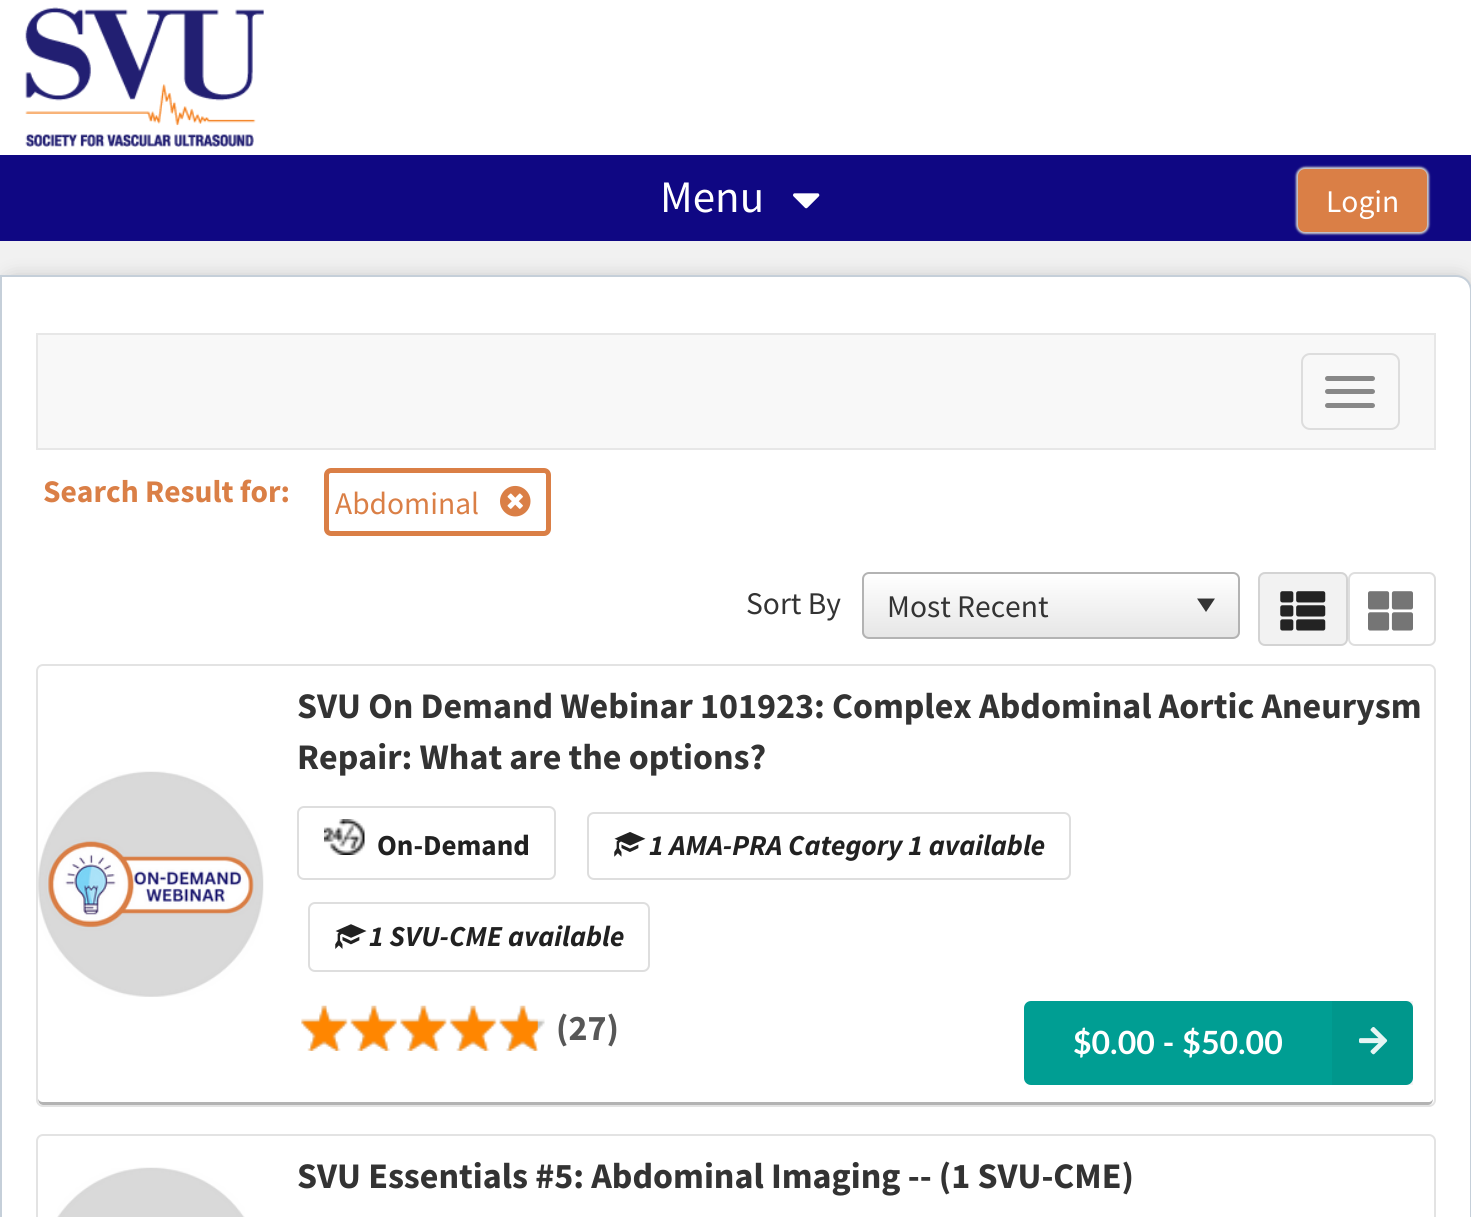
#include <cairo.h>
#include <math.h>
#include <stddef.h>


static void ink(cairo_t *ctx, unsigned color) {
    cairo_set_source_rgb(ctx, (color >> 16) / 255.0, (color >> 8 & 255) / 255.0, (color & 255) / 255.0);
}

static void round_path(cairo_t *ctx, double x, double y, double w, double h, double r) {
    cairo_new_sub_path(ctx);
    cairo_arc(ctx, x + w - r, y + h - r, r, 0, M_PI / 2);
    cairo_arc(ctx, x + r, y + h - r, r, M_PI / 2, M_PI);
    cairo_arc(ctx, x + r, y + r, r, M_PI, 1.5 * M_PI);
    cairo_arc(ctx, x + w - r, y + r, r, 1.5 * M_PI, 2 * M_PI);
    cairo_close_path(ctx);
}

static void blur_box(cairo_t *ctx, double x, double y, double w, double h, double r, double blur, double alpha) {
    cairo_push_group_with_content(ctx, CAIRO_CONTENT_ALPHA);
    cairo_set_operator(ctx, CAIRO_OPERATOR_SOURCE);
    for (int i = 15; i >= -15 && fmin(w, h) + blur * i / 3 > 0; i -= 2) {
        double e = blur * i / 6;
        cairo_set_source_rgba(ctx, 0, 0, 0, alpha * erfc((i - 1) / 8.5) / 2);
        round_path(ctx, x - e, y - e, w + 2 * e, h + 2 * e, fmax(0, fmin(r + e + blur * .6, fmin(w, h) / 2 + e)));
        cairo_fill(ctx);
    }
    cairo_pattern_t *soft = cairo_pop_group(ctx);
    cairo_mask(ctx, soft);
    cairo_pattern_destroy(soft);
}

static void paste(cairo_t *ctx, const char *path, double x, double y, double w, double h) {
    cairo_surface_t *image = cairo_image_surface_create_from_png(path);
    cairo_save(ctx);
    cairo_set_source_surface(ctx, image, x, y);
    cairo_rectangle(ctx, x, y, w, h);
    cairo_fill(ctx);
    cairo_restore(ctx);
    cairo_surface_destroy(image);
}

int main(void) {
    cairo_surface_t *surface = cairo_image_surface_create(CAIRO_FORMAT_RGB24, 1471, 1217);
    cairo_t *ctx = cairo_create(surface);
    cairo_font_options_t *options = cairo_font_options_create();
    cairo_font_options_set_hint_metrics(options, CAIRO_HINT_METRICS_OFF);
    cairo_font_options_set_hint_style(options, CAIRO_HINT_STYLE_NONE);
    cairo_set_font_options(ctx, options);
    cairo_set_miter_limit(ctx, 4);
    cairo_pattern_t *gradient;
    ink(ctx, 0xF1F1F1);
    cairo_paint(ctx);
    ink(ctx, 0xFFFFFF);
    cairo_rectangle(ctx, 0, 0, 1471, 155);
    cairo_fill(ctx);
    paste(ctx, "media/1.png", 25, 7, 239, 140);
    ink(ctx, 0x0F0783);
    cairo_rectangle(ctx, 0, 155, 1471, 86);
    cairo_fill(ctx);
    cairo_select_font_face(ctx, "Source Sans Pro", CAIRO_FONT_SLANT_NORMAL, CAIRO_FONT_WEIGHT_NORMAL);
    cairo_set_font_size(ctx, 45);
    ink(ctx, 0xFFFFFF);
    cairo_move_to(ctx, 660, 212);
    cairo_show_text(ctx, "Menu");
    paste(ctx, "media/2.png", 793, 193, 27, 16);
    ink(ctx, 0xCCCCCC);
    blur_box(ctx, 1296, 167, 133, 67, 9, 1, 1);
    ink(ctx, 0xDA7F46);
    round_path(ctx, 1298, 169, 129, 63, 7);
    cairo_fill(ctx);
    cairo_set_font_size(ctx, 31.5);
    ink(ctx, 0xFFFFFF);
    cairo_move_to(ctx, 1326, 212);
    cairo_show_text(ctx, "Login");
    ink(ctx, 0x000000);
    blur_box(ctx, 0, 277, 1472, 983, 16, 9, 0.2);
    ink(ctx, 0xFFFFFF);
    cairo_new_path(ctx);
    cairo_move_to(ctx, 1, 276);
    cairo_line_to(ctx, 1456, 276);
    cairo_curve_to(ctx, 1464.5, 276, 1471, 282.5, 1471, 291);
    cairo_line_to(ctx, 1471, 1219);
    cairo_curve_to(ctx, 1471, 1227.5, 1464.5, 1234, 1456, 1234);
    cairo_line_to(ctx, 1, 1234);
    cairo_close_path(ctx);
    cairo_fill_preserve(ctx);
    ink(ctx, 0xC5CFD9);
    cairo_stroke(ctx);
    ink(ctx, 0xF8F8F8);
    cairo_rectangle(ctx, 37, 334, 1398, 115);
    cairo_fill_preserve(ctx);
    ink(ctx, 0xE7E7E7);
    cairo_stroke(ctx);
    round_path(ctx, 1302, 354, 97, 75, 8);
    ink(ctx, 0xDDDDDD);
    cairo_stroke(ctx);
    ink(ctx, 0x888888);
    round_path(ctx, 1325, 376, 50, 5, 2.5);
    cairo_fill(ctx);
    round_path(ctx, 1325, 389, 50, 5, 2.5);
    cairo_fill(ctx);
    round_path(ctx, 1325, 403, 50, 5, 2.5);
    cairo_fill(ctx);
    cairo_select_font_face(ctx, "Source Sans Pro", CAIRO_FONT_SLANT_NORMAL, CAIRO_FONT_WEIGHT_BOLD);
    ink(ctx, 0xDA7F46);
    cairo_move_to(ctx, 43, 502);
    cairo_show_text(ctx, "Search Result for:");
    round_path(ctx, 326.5, 470.5, 222, 63, 4.5);
    cairo_set_line_width(ctx, 5);
    cairo_stroke(ctx);
    cairo_select_font_face(ctx, "Source Sans Pro", CAIRO_FONT_SLANT_NORMAL, CAIRO_FONT_WEIGHT_NORMAL);
    cairo_move_to(ctx, 335, 514);
    cairo_show_text(ctx, "Abdominal");
    paste(ctx, "media/3.png", 500, 485, 31, 32);
    ink(ctx, 0x333333);
    cairo_move_to(ctx, 746, 614);
    cairo_show_text(ctx, "Sort By");
    cairo_save(ctx);
    round_path(ctx, 862, 572, 378, 67, 7);
    cairo_clip(ctx);
    gradient = cairo_pattern_create_linear(1051, 574, 1051, 637);
    cairo_pattern_add_color_stop_rgba(gradient, 0, 1, 1, 1, 1);
    cairo_pattern_add_color_stop_rgba(gradient, 1, 0.902, 0.902, 0.902, 1);
    cairo_set_source(ctx, gradient);
    cairo_pattern_destroy(gradient);
    cairo_rectangle(ctx, 862, 574, 378, 63);
    cairo_fill(ctx);
    cairo_restore(ctx);
    round_path(ctx, 863, 573, 376, 65, 6);
    ink(ctx, 0xB3B3B3);
    cairo_set_line_width(ctx, 2);
    cairo_stroke(ctx);
    ink(ctx, 0x333333);
    cairo_move_to(ctx, 887, 617);
    cairo_show_text(ctx, "Most Recent");
    cairo_new_path(ctx);
    cairo_move_to(ctx, 1206, 612);
    cairo_line_to(ctx, 1197, 598.5);
    cairo_line_to(ctx, 1215, 598.5);
    cairo_close_path(ctx);
    cairo_fill(ctx);
    ink(ctx, 0xF2F2F2);
    round_path(ctx, 1258, 572, 90, 74, 7);
    cairo_fill(ctx);
    round_path(ctx, 1259, 573, 88, 72, 6);
    cairo_set_source_rgba(ctx, 0.133, 0.141, 0.149, 0.15);
    cairo_stroke(ctx);
    paste(ctx, "media/4.png", 1280, 591, 46, 40);
    round_path(ctx, 1349, 573, 86, 72, 6);
    ink(ctx, 0xDEDEDE);
    cairo_stroke(ctx);
    paste(ctx, "media/5.png", 1368, 591, 45, 40);
    ink(ctx, 0xB3B3B3);
    cairo_new_path(ctx);
    cairo_move_to(ctx, 38, 1098);
    cairo_curve_to(ctx, 38, 1101, 39, 1105, 43, 1105);
    cairo_line_to(ctx, 1428, 1105);
    cairo_curve_to(ctx, 1432, 1105, 1433, 1101, 1433, 1098);
    cairo_curve_to(ctx, 1433, 1100, 1431, 1102, 1429, 1102);
    cairo_line_to(ctx, 43, 1102);
    cairo_curve_to(ctx, 40, 1102, 38, 1100, 38, 1098);
    cairo_close_path(ctx);
    cairo_fill(ctx);
    round_path(ctx, 37, 665, 1398, 441, 6);
    ink(ctx, 0xE3E3E3);
    cairo_stroke(ctx);
    paste(ctx, "media/6.png", 38, 771, 226, 226);
    cairo_select_font_face(ctx, "Source Sans Pro", CAIRO_FONT_SLANT_NORMAL, CAIRO_FONT_WEIGHT_BOLD);
    cairo_set_font_size(ctx, 36);
    ink(ctx, 0x333333);
    cairo_move_to(ctx, 297, 718);
    cairo_show_text(ctx, "SVU On Demand Webinar 101923: Complex Abdominal Aortic Aneurysm");
    cairo_move_to(ctx, 297, 769);
    cairo_show_text(ctx, "Repair: What are the options?");
    round_path(ctx, 588, 813, 482, 66, 6);
    ink(ctx, 0xDEDEDE);
    cairo_stroke(ctx);
    paste(ctx, "media/7.png", 614, 832, 32, 25);
    cairo_select_font_face(ctx, "Source Sans Pro", CAIRO_FONT_SLANT_ITALIC, CAIRO_FONT_WEIGHT_BOLD);
    cairo_set_font_size(ctx, 29);
    ink(ctx, 0x212121);
    cairo_move_to(ctx, 649, 855);
    cairo_show_text(ctx, "1 AMA-PRA Category 1 available");
    round_path(ctx, 309, 903, 340, 68, 6);
    ink(ctx, 0xDEDEDE);
    cairo_stroke(ctx);
    paste(ctx, "media/8.png", 335, 924, 32, 25);
    ink(ctx, 0x212121);
    cairo_move_to(ctx, 369, 946);
    cairo_show_text(ctx, "1 SVU-CME available");
    round_path(ctx, 298, 807, 257, 72, 6);
    ink(ctx, 0xDEDEDE);
    cairo_stroke(ctx);
    paste(ctx, "media/9.png", 324, 819, 41, 36);
    cairo_select_font_face(ctx, "Source Sans Pro", CAIRO_FONT_SLANT_NORMAL, CAIRO_FONT_WEIGHT_BOLD);
    ink(ctx, 0x212121);
    cairo_move_to(ctx, 377, 855);
    cairo_show_text(ctx, "On-Demand");
    paste(ctx, "media/10.png", 301, 1005, 244, 46);
    paste(ctx, "media/11.png", 301, 1005, 237, 46);
    cairo_set_font_size(ctx, 36);
    ink(ctx, 0x575757);
    cairo_move_to(ctx, 556, 1040);
    cairo_show_text(ctx, "(27)");
    ink(ctx, 0x009E93);
    round_path(ctx, 1024, 1001, 389, 84, 7);
    cairo_fill(ctx);
    cairo_select_font_face(ctx, "Lato", CAIRO_FONT_SLANT_NORMAL, CAIRO_FONT_WEIGHT_BOLD);
    cairo_set_font_size(ctx, 32);
    ink(ctx, 0xFFFFFF);
    cairo_move_to(ctx, 1073, 1054);
    cairo_show_text(ctx, "$0.00 - $50.00");
    cairo_set_source_rgba(ctx, 0, 0, 0, 0.05);
    cairo_rectangle(ctx, 1332, 1001, 81, 84);
    cairo_fill(ctx);
    paste(ctx, "media/12.png", 1359, 1027, 29, 28);
    round_path(ctx, 37, 1135, 1398, 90, 6);
    ink(ctx, 0xE3E3E3);
    cairo_stroke(ctx);
    paste(ctx, "media/13.png", 57, 1167, 188, 50);
    cairo_select_font_face(ctx, "Source Sans Pro", CAIRO_FONT_SLANT_NORMAL, CAIRO_FONT_WEIGHT_BOLD);
    cairo_set_font_size(ctx, 36);
    ink(ctx, 0x333333);
    cairo_move_to(ctx, 297, 1188);
    cairo_show_text(ctx, "SVU Essentials #5: Abdominal Imaging -- (1 SVU-CME)");
    cairo_surface_write_to_png(surface, "image.png");
    cairo_font_options_destroy(options);
    cairo_destroy(ctx);
    cairo_surface_destroy(surface);
    return 0;
}
